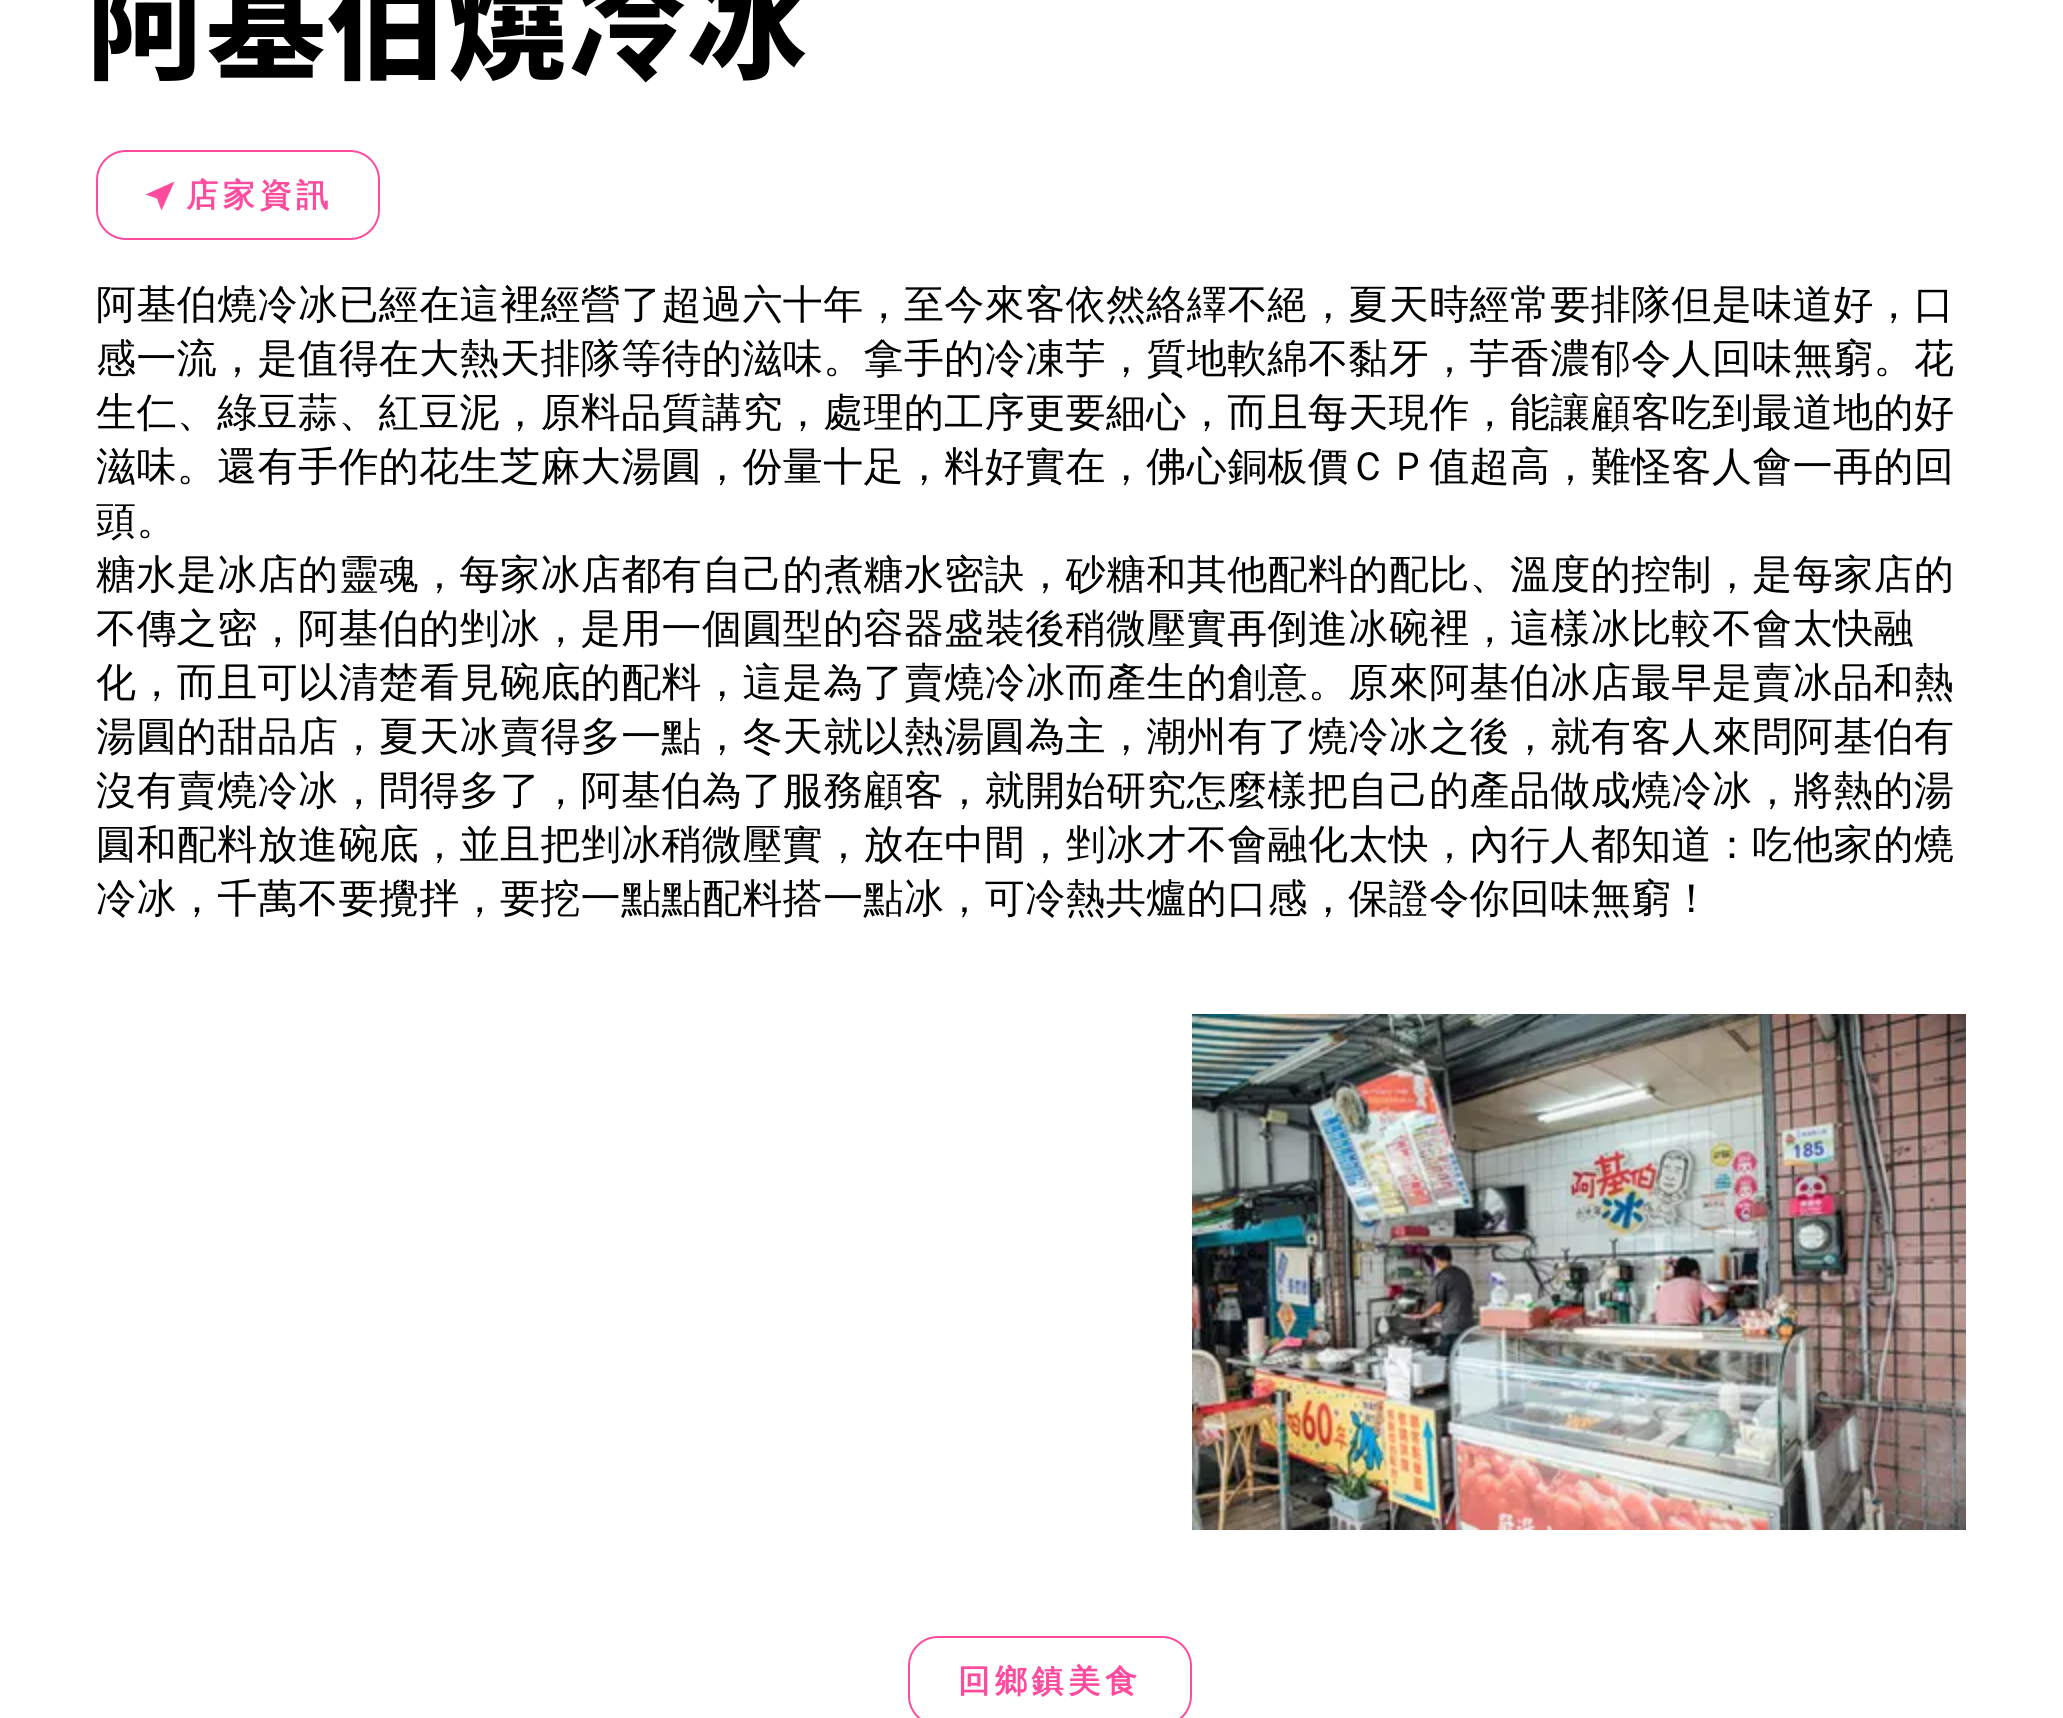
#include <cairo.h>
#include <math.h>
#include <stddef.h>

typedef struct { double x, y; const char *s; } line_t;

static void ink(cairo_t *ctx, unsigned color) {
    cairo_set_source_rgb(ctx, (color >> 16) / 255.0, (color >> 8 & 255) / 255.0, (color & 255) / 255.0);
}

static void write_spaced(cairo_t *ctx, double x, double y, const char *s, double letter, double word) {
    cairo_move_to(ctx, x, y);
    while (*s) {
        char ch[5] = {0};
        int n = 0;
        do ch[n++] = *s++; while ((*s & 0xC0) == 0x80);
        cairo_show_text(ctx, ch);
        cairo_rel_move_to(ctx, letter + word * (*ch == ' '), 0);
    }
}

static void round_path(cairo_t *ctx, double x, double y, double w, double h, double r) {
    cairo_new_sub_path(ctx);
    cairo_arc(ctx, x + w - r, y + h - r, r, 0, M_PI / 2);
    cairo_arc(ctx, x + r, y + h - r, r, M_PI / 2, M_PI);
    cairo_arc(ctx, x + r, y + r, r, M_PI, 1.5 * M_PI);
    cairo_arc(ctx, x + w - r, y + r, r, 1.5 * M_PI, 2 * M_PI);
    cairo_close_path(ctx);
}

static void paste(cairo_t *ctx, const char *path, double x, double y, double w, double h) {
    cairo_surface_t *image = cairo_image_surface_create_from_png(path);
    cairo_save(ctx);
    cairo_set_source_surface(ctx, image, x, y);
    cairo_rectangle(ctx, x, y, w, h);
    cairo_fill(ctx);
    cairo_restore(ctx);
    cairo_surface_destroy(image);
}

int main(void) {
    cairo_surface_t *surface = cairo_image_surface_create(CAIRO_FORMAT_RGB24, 2063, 1718);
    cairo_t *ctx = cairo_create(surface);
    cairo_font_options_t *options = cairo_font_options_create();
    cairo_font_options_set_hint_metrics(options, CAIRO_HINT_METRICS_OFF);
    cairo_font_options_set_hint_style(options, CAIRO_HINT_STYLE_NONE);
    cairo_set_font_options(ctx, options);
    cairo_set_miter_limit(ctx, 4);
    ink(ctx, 0xFFFFFF);
    cairo_paint(ctx);
    cairo_select_font_face(ctx, "Noto Sans TC ExtraBold", CAIRO_FONT_SLANT_NORMAL, CAIRO_FONT_WEIGHT_NORMAL);
    cairo_set_font_size(ctx, 120);
    ink(ctx, 0x000000);
    cairo_move_to(ctx, 86, 70);
    cairo_show_text(ctx, "阿基伯燒冷冰");
    round_path(ctx, 97, 151, 282, 88, 29);
    ink(ctx, 0xFF4B9D);
    cairo_stroke(ctx);
    cairo_new_path(ctx);
    cairo_move_to(ctx, 145.5, 194.5);
    cairo_line_to(ctx, 174.5, 181.5);
    cairo_line_to(ctx, 161.5, 210.5);
    cairo_line_to(ctx, 157, 198.5);
    cairo_close_path(ctx);
    cairo_fill(ctx);
    cairo_select_font_face(ctx, "WenQuanYi Zen Hei", CAIRO_FONT_SLANT_NORMAL, CAIRO_FONT_WEIGHT_BOLD);
    cairo_set_font_size(ctx, 32);
    write_spaced(ctx, 186, 206, "店家資訊", 4.75, 0);
    cairo_select_font_face(ctx, "WenQuanYi Zen Hei Medium", CAIRO_FONT_SLANT_NORMAL, CAIRO_FONT_WEIGHT_NORMAL);
    cairo_set_font_size(ctx, 40);
    ink(ctx, 0x000000);
    {
        static const line_t items[] = {
            {96, 318, "阿基伯燒冷冰已經在這裡經營了超過六十年，至今來客依然絡繹不絕，夏天時經常要排隊但是味道好，口"},
            {96, 372, "感一流，是值得在大熱天排隊等待的滋味。拿手的冷凍芋，質地軟綿不黏牙，芋香濃郁令人回味無窮。花"},
            {96, 426, "生仁、綠豆蒜、紅豆泥，原料品質講究，處理的工序更要細心，而且每天現作，能讓顧客吃到最道地的好"},
            {96, 480, "滋味。還有手作的花生芝麻大湯圓，份量十足，料好實在，佛心銅板價ＣＰ值超高，難怪客人會一再的回"},
            {96, 534, "頭。"},
            {96, 588, "糖水是冰店的靈魂，每家冰店都有自己的煮糖水密訣，砂糖和其他配料的配比、溫度的控制，是每家店的"},
            {96, 642, "不傳之密，阿基伯的剉冰，是用一個圓型的容器盛裝後稍微壓實再倒進冰碗裡，這樣冰比較不會太快融"},
            {96, 696, "化，而且可以清楚看見碗底的配料，這是為了賣燒冷冰而產生的創意。原來阿基伯冰店最早是賣冰品和熱"},
            {96, 750, "湯圓的甜品店，夏天冰賣得多一點，冬天就以熱湯圓為主，潮州有了燒冷冰之後，就有客人來問阿基伯有"},
            {96, 804, "沒有賣燒冷冰，問得多了，阿基伯為了服務顧客，就開始研究怎麼樣把自己的產品做成燒冷冰，將熱的湯"},
            {96, 858, "圓和配料放進碗底，並且把剉冰稍微壓實，放在中間，剉冰才不會融化太快，內行人都知道：吃他家的燒"},
            {96, 912, "冷冰，千萬不要攪拌，要挖一點點配料搭一點冰，可冷熱共爐的口感，保證令你回味無窮！"},
        };
        for (size_t i = 0; i < sizeof items / sizeof *items; i++) {
            write_spaced(ctx, items[i].x, items[i].y, items[i].s, 0.4, 0);
        }
    }
    paste(ctx, "media/1.png", 1192, 1014, 774, 516);
    round_path(ctx, 909, 1637, 282, 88, 29);
    ink(ctx, 0xFF4B9D);
    cairo_stroke(ctx);
    cairo_select_font_face(ctx, "WenQuanYi Zen Hei", CAIRO_FONT_SLANT_NORMAL, CAIRO_FONT_WEIGHT_BOLD);
    cairo_set_font_size(ctx, 32);
    write_spaced(ctx, 958, 1692, "回鄉鎮美食", 4.75, 0);
    cairo_surface_write_to_png(surface, "image.png");
    cairo_font_options_destroy(options);
    cairo_destroy(ctx);
    cairo_surface_destroy(surface);
    return 0;
}
